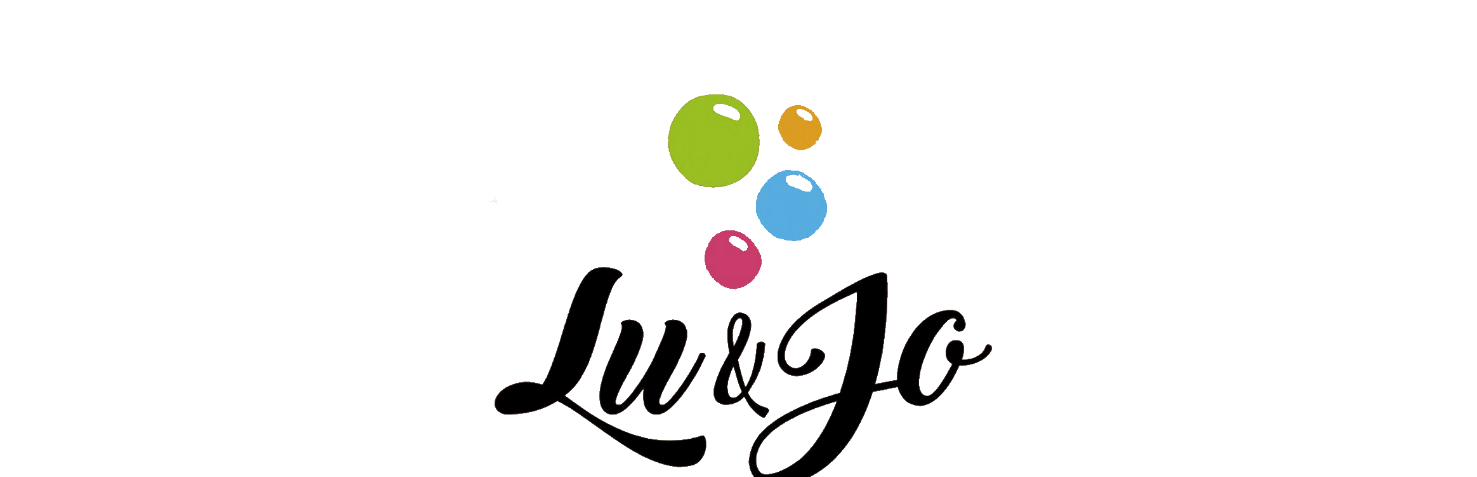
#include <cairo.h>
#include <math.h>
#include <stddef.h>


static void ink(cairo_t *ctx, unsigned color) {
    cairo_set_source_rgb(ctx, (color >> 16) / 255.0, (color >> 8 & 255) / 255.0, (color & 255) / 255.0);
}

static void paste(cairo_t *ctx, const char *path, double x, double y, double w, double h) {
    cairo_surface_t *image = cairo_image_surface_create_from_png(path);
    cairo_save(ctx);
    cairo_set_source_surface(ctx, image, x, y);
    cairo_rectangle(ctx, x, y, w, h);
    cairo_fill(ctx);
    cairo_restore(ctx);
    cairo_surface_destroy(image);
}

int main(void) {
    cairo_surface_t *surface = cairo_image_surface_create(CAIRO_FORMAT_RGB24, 1477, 477);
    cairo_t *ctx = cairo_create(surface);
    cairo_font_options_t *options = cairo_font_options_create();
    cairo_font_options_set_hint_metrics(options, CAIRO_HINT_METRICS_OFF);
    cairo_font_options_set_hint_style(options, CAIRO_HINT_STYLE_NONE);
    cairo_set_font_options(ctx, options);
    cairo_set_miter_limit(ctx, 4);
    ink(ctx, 0xFFFFFF);
    cairo_paint(ctx);
    paste(ctx, "media/1.png", 489, 94, 503, 383);
    cairo_surface_write_to_png(surface, "image.png");
    cairo_font_options_destroy(options);
    cairo_destroy(ctx);
    cairo_surface_destroy(surface);
    return 0;
}
